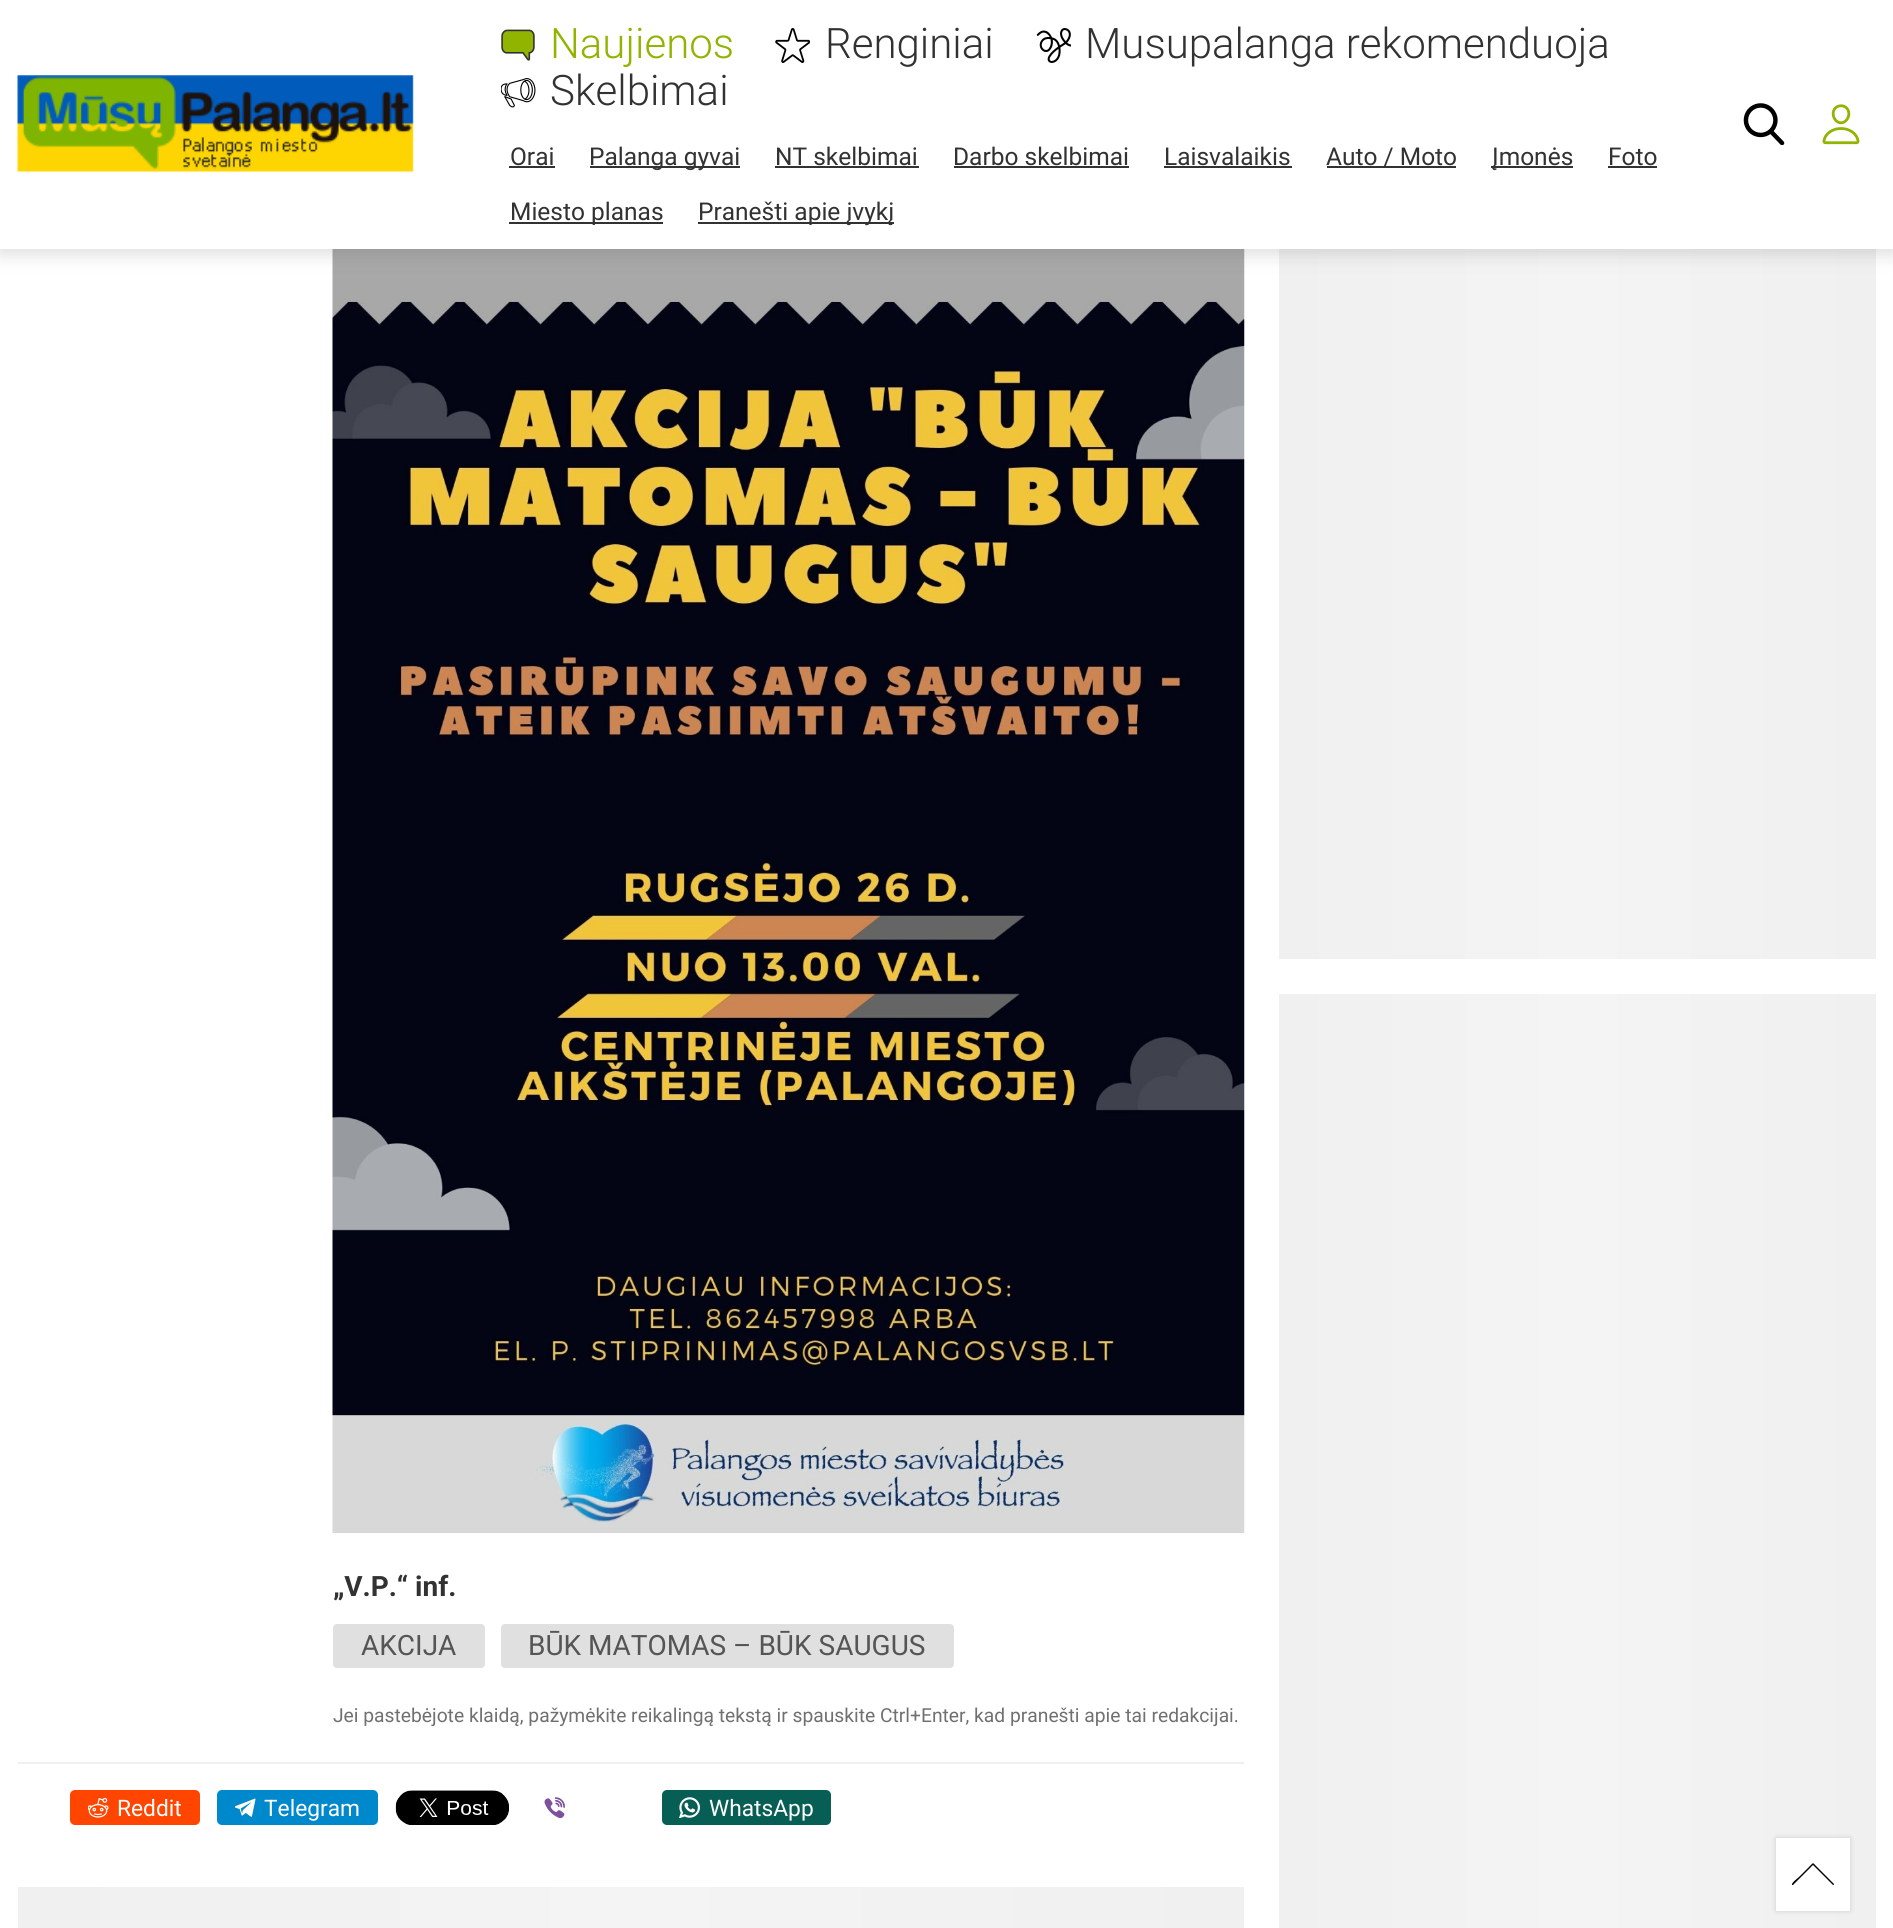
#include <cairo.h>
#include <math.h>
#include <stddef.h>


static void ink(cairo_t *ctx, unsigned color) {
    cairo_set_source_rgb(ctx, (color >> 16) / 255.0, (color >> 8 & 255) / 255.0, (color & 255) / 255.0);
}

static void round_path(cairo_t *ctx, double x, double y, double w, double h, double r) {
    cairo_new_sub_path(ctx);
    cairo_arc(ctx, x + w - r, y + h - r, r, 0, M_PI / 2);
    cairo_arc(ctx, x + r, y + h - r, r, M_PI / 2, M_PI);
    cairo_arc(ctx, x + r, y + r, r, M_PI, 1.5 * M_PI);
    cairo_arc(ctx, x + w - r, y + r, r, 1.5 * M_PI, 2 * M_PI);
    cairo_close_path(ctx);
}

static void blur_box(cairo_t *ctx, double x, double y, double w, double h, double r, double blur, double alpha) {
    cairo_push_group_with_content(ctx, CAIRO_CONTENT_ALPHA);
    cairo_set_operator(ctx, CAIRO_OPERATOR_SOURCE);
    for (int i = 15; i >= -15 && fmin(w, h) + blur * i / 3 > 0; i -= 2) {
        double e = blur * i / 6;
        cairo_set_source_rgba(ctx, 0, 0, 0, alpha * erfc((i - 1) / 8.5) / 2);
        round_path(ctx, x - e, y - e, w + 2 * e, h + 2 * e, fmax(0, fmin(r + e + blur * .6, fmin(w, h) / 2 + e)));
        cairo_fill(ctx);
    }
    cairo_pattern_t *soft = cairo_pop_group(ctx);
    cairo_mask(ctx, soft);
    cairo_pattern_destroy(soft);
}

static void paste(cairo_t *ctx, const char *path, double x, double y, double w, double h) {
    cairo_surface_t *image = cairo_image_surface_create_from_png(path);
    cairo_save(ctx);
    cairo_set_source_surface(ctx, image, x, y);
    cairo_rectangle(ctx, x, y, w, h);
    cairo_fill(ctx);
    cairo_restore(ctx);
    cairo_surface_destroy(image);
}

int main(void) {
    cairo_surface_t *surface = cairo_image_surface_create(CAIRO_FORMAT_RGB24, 1893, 1928);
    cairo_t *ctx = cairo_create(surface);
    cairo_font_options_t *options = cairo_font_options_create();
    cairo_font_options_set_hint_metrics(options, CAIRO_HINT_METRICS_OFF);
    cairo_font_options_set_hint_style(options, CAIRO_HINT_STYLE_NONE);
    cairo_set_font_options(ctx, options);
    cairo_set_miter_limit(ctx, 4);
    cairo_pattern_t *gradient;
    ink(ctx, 0xFFFFFF);
    cairo_paint(ctx);
    paste(ctx, "media/8.png", 332, 249, 913, 1284);
    gradient = cairo_pattern_create_linear(1279, 473, 1876, 473);
    cairo_pattern_add_color_stop_rgba(gradient, 0, 0.941, 0.941, 0.941, 1);
    cairo_pattern_add_color_stop_rgba(gradient, 0.5, 0.957, 0.957, 0.957, 1);
    cairo_pattern_add_color_stop_rgba(gradient, 1, 0.941, 0.941, 0.941, 1);
    cairo_set_source(ctx, gradient);
    cairo_pattern_destroy(gradient);
    cairo_rectangle(ctx, 1279, 249, 597, 710);
    cairo_fill(ctx);
    ink(ctx, 0x4E4E4E);
    blur_box(ctx, 0, 5, 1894, 249, 0, 9, 0.2);
    ink(ctx, 0xFFFFFF);
    cairo_rectangle(ctx, 0, 0, 1893, 249);
    cairo_fill(ctx);
    paste(ctx, "media/1.png", 17, 75, 397, 98);
    paste(ctx, "media/2.png", 501, 29, 34, 32);
    cairo_select_font_face(ctx, "Roboto Light", CAIRO_FONT_SLANT_NORMAL, CAIRO_FONT_WEIGHT_NORMAL);
    cairo_set_font_size(ctx, 42);
    ink(ctx, 0x90B400);
    cairo_move_to(ctx, 550, 58);
    cairo_show_text(ctx, "Naujienos");
    paste(ctx, "media/3.png", 775, 28, 35, 35);
    ink(ctx, 0x323232);
    cairo_move_to(ctx, 825, 58);
    cairo_show_text(ctx, "Renginiai");
    paste(ctx, "media/4.png", 1036, 28, 35, 35);
    cairo_move_to(ctx, 1085, 58);
    cairo_show_text(ctx, "Musupalanga rekomenduoja");
    paste(ctx, "media/5.png", 501, 78, 35, 30);
    cairo_move_to(ctx, 550, 105);
    cairo_show_text(ctx, "Skelbimai");
    cairo_select_font_face(ctx, "Roboto", CAIRO_FONT_SLANT_NORMAL, CAIRO_FONT_WEIGHT_NORMAL);
    cairo_set_font_size(ctx, 24.5);
    cairo_move_to(ctx, 510, 165);
    cairo_show_text(ctx, "Orai");
    cairo_rectangle(ctx, 509, 166, 46, 2);
    cairo_fill(ctx);
    cairo_rectangle(ctx, 590, 166, 150, 2);
    cairo_fill(ctx);
    cairo_move_to(ctx, 589, 165);
    cairo_show_text(ctx, "Palanga gyvai");
    cairo_move_to(ctx, 775, 165);
    cairo_show_text(ctx, "NT skelbimai");
    cairo_rectangle(ctx, 775, 166, 144, 2);
    cairo_fill(ctx);
    cairo_move_to(ctx, 953, 165);
    cairo_show_text(ctx, "Darbo skelbimai");
    cairo_rectangle(ctx, 954, 166, 175, 2);
    cairo_fill(ctx);
    cairo_move_to(ctx, 1164, 165);
    cairo_show_text(ctx, "Laisvalaikis");
    cairo_rectangle(ctx, 1164, 166, 128, 2);
    cairo_fill(ctx);
    cairo_rectangle(ctx, 1327, 166, 129, 2);
    cairo_fill(ctx);
    cairo_move_to(ctx, 1326, 165);
    cairo_show_text(ctx, "Auto / Moto");
    cairo_rectangle(ctx, 1491, 166, 82, 2);
    cairo_fill(ctx);
    cairo_move_to(ctx, 1492, 165);
    cairo_show_text(ctx, "Įmonės");
    cairo_move_to(ctx, 1608, 165);
    cairo_show_text(ctx, "Foto");
    cairo_rectangle(ctx, 1608, 166, 49, 2);
    cairo_fill(ctx);
    cairo_rectangle(ctx, 509, 222, 154, 2);
    cairo_fill(ctx);
    cairo_move_to(ctx, 510, 220);
    cairo_show_text(ctx, "Miesto planas");
    cairo_rectangle(ctx, 698, 222, 196, 2);
    cairo_fill(ctx);
    cairo_move_to(ctx, 698, 220);
    cairo_show_text(ctx, "Pranešti apie įvykį");
    paste(ctx, "media/6.png", 1743, 103, 42, 42);
    paste(ctx, "media/7.png", 1822, 104, 38, 41);
    cairo_select_font_face(ctx, "Roboto", CAIRO_FONT_SLANT_NORMAL, CAIRO_FONT_WEIGHT_BOLD);
    cairo_set_font_size(ctx, 28);
    cairo_move_to(ctx, 333, 1596);
    cairo_show_text(ctx, "„V.P.“ inf.");
    ink(ctx, 0xE0E0E0);
    round_path(ctx, 333, 1624, 152, 44, 4);
    cairo_fill(ctx);
    cairo_select_font_face(ctx, "Roboto", CAIRO_FONT_SLANT_NORMAL, CAIRO_FONT_WEIGHT_NORMAL);
    ink(ctx, 0x555555);
    cairo_move_to(ctx, 361, 1655);
    cairo_show_text(ctx, "AKCIJA");
    ink(ctx, 0xE0E0E0);
    round_path(ctx, 501, 1624, 453, 44, 4);
    cairo_fill(ctx);
    ink(ctx, 0x555555);
    cairo_move_to(ctx, 528, 1655);
    cairo_show_text(ctx, "BŪK MATOMAS – BŪK SAUGUS");
    cairo_set_font_size(ctx, 19.25);
    ink(ctx, 0x707070);
    cairo_move_to(ctx, 333, 1722);
    cairo_show_text(ctx, "Jei pastebėjote klaidą, pažymėkite reikalingą tekstą ir spauskite Ctrl+Enter, kad pranešti apie tai redakcijai.");
    ink(ctx, 0xF0F0F0);
    cairo_rectangle(ctx, 18, 1762, 1226, 2);
    cairo_fill(ctx);
    ink(ctx, 0xFF4500);
    round_path(ctx, 70, 1790, 130, 35, 5);
    cairo_fill(ctx);
    paste(ctx, "media/9.png", 88, 1797, 21, 21);
    cairo_set_font_size(ctx, 22.75);
    ink(ctx, 0xFFFFFF);
    cairo_move_to(ctx, 117, 1816);
    cairo_show_text(ctx, "Reddit");
    ink(ctx, 0x0088CC);
    round_path(ctx, 217, 1790, 161, 35, 5);
    cairo_fill(ctx);
    paste(ctx, "media/10.png", 235, 1798, 21, 19);
    ink(ctx, 0xFFFFFF);
    cairo_move_to(ctx, 264, 1816);
    cairo_show_text(ctx, "Telegram");
    paste(ctx, "media/11.png", 395, 1790, 114, 35);
    paste(ctx, "media/12.png", 544, 1797, 21, 21);
    ink(ctx, 0x075E54);
    round_path(ctx, 662, 1790, 169, 35, 5);
    cairo_fill(ctx);
    paste(ctx, "media/13.png", 679, 1797, 21, 21);
    ink(ctx, 0xFFFFFF);
    cairo_move_to(ctx, 709, 1816);
    cairo_show_text(ctx, "WhatsApp");
    gradient = cairo_pattern_create_linear(18, 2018, 1244, 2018);
    cairo_pattern_add_color_stop_rgba(gradient, 0, 0.941, 0.941, 0.941, 1);
    cairo_pattern_add_color_stop_rgba(gradient, 0.5, 0.957, 0.957, 0.957, 1);
    cairo_pattern_add_color_stop_rgba(gradient, 1, 0.941, 0.941, 0.941, 1);
    cairo_set_source(ctx, gradient);
    cairo_pattern_destroy(gradient);
    cairo_rectangle(ctx, 18, 1887, 1226, 41);
    cairo_fill(ctx);
    gradient = cairo_pattern_create_linear(1279, 1480, 1876, 1480);
    cairo_pattern_add_color_stop_rgba(gradient, 0, 0.941, 0.941, 0.941, 1);
    cairo_pattern_add_color_stop_rgba(gradient, 0.5, 0.957, 0.957, 0.957, 1);
    cairo_pattern_add_color_stop_rgba(gradient, 1, 0.941, 0.941, 0.941, 1);
    cairo_set_source(ctx, gradient);
    cairo_pattern_destroy(gradient);
    cairo_rectangle(ctx, 1279, 994, 597, 934);
    cairo_fill(ctx);
    ink(ctx, 0x636363);
    blur_box(ctx, 1776, 1838, 74, 73, 0, 2.5, 0.25);
    ink(ctx, 0xFFFFFF);
    cairo_rectangle(ctx, 1776, 1838, 74, 73);
    cairo_fill(ctx);
    ink(ctx, 0x000000);
    cairo_new_path(ctx);
    cairo_move_to(ctx, 1834, 1884);
    cairo_line_to(ctx, 1817, 1867);
    cairo_curve_to(ctx, 1812, 1862, 1814, 1862, 1809, 1867);
    cairo_line_to(ctx, 1799, 1877);
    cairo_curve_to(ctx, 1798, 1878, 1791, 1883, 1792, 1885);
    cairo_line_to(ctx, 1793, 1885);
    cairo_line_to(ctx, 1813, 1865);
    cairo_line_to(ctx, 1833, 1885);
    cairo_curve_to(ctx, 1834, 1885, 1834, 1884, 1834, 1884);
    cairo_close_path(ctx);
    cairo_fill(ctx);
    cairo_surface_write_to_png(surface, "image.png");
    cairo_font_options_destroy(options);
    cairo_destroy(ctx);
    cairo_surface_destroy(surface);
    return 0;
}
